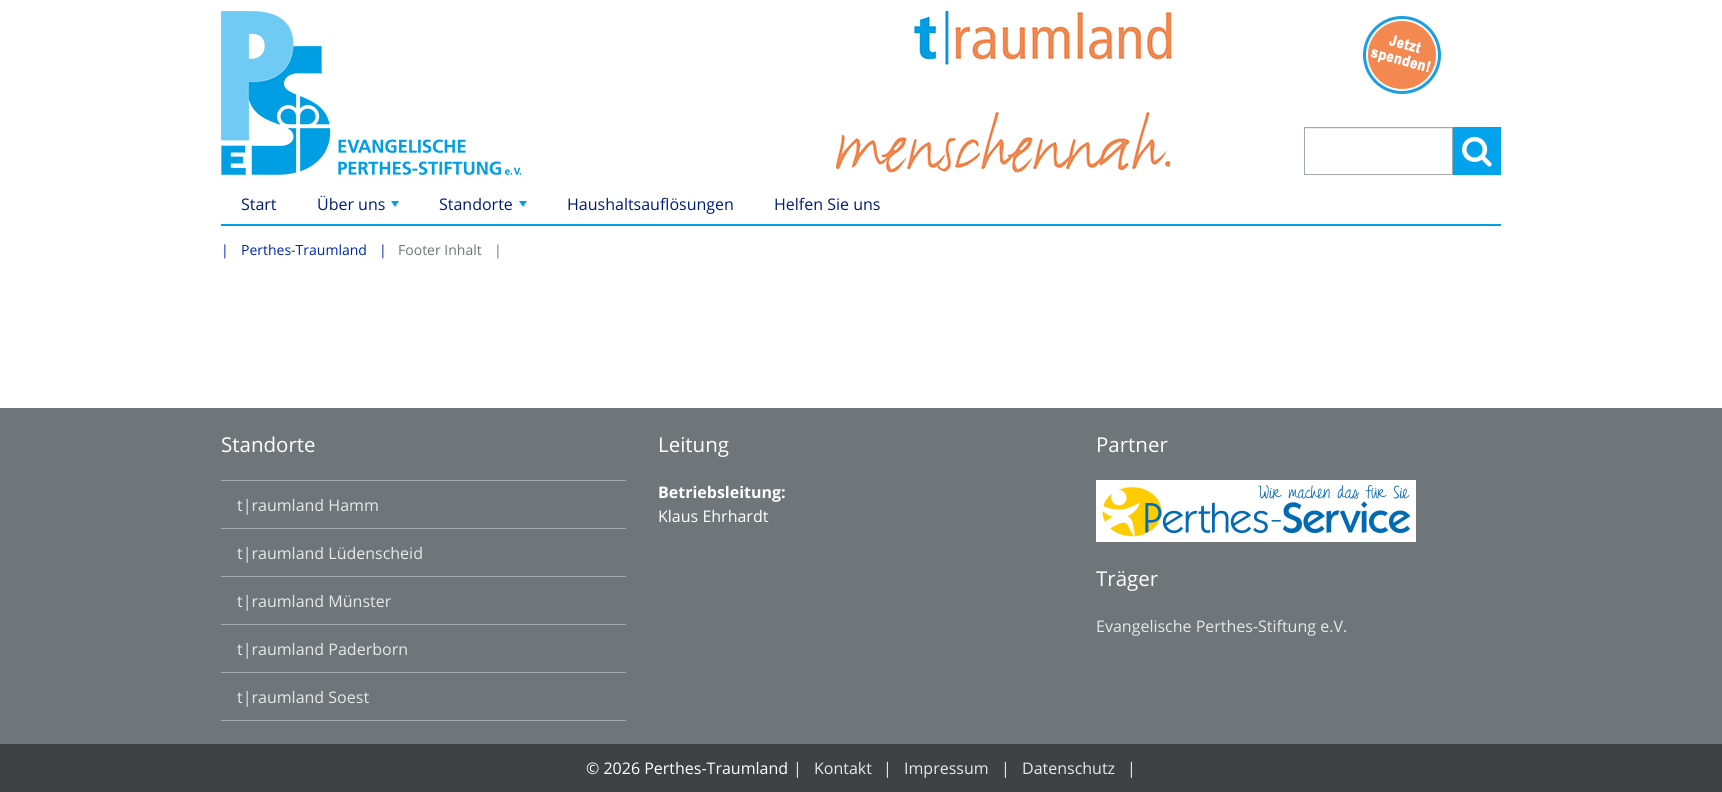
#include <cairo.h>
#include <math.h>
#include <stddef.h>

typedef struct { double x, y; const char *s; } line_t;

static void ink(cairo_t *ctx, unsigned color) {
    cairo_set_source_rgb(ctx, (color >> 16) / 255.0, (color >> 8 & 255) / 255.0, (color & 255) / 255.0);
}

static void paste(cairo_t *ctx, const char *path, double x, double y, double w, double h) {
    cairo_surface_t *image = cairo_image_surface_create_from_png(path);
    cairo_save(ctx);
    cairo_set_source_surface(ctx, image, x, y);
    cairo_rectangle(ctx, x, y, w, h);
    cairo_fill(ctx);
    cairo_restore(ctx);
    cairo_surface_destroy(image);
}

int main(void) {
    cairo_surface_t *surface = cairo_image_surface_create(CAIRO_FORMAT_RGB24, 1722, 792);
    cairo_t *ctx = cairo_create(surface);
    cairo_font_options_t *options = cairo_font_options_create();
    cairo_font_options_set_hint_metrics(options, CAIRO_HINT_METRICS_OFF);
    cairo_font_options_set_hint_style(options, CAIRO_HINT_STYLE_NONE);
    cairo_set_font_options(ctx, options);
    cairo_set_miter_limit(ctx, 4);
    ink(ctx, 0xFFFFFF);
    cairo_paint(ctx);
    paste(ctx, "media/1.png", 221, 11, 300, 164);
    paste(ctx, "media/2.png", 835, 10, 337, 163);
    paste(ctx, "media/3.png", 1363, 16, 78, 78);
    ink(ctx, 0xECECEC);
    cairo_rectangle(ctx, 1305, 128, 147, 1);
    cairo_fill(ctx);
    cairo_rectangle(ctx, 1304.5, 127.5, 148, 47);
    ink(ctx, 0xA3A8AB);
    cairo_set_line_width(ctx, 1);
    cairo_stroke(ctx);
    ink(ctx, 0x01A3EC);
    cairo_rectangle(ctx, 1453, 127, 48, 48);
    cairo_fill(ctx);
    paste(ctx, "media/4.png", 1462, 136, 30, 31);
    ink(ctx, 0x009FE3);
    cairo_rectangle(ctx, 221, 224, 1280, 2);
    cairo_fill(ctx);
    cairo_select_font_face(ctx, "Open Sans", CAIRO_FONT_SLANT_NORMAL, CAIRO_FONT_WEIGHT_NORMAL);
    cairo_set_font_size(ctx, 16);
    ink(ctx, 0x001B75);
    cairo_move_to(ctx, 241, 210);
    cairo_show_text(ctx, "Start");
    cairo_move_to(ctx, 317, 210);
    cairo_show_text(ctx, "Über uns");
    ink(ctx, 0x009FE3);
    cairo_new_path(ctx);
    cairo_move_to(ctx, 391, 201);
    cairo_line_to(ctx, 399, 201);
    cairo_line_to(ctx, 395, 207);
    cairo_close_path(ctx);
    cairo_fill(ctx);
    ink(ctx, 0x001B75);
    cairo_move_to(ctx, 439, 210);
    cairo_show_text(ctx, "Standorte");
    ink(ctx, 0x009FE3);
    cairo_new_path(ctx);
    cairo_move_to(ctx, 519, 201);
    cairo_line_to(ctx, 527, 201);
    cairo_line_to(ctx, 523, 207);
    cairo_close_path(ctx);
    cairo_fill(ctx);
    ink(ctx, 0x001B75);
    cairo_move_to(ctx, 567, 210);
    cairo_show_text(ctx, "Haushaltsauflösungen");
    cairo_move_to(ctx, 774, 210);
    cairo_show_text(ctx, "Helfen Sie uns");
    cairo_set_font_size(ctx, 14);
    ink(ctx, 0x0026A8);
    {
        static const line_t items[] = {
            {221, 255, "|"},
            {241, 255, "Perthes-Traumland"},
            {379, 255, "|"},
        };
        for (size_t i = 0; i < sizeof items / sizeof *items; i++) {
            cairo_move_to(ctx, items[i].x, items[i].y);
            cairo_show_text(ctx, items[i].s);
        }
    }
    ink(ctx, 0x6F7679);
    cairo_move_to(ctx, 398, 255);
    cairo_show_text(ctx, "Footer Inhalt");
    cairo_move_to(ctx, 494, 255);
    cairo_show_text(ctx, "|");
    cairo_rectangle(ctx, 0, 408, 1722, 336);
    cairo_fill(ctx);
    cairo_set_font_size(ctx, 20.5);
    ink(ctx, 0xFFFFFF);
    cairo_move_to(ctx, 221, 452);
    cairo_show_text(ctx, "Standorte");
    ink(ctx, 0xA3A8AB);
    cairo_rectangle(ctx, 221, 720, 405, 1);
    cairo_fill(ctx);
    cairo_rectangle(ctx, 221, 480, 405, 1);
    cairo_fill(ctx);
    cairo_set_font_size(ctx, 16);
    ink(ctx, 0xE6E7E8);
    cairo_move_to(ctx, 237, 511);
    cairo_show_text(ctx, "t|raumland Hamm");
    ink(ctx, 0xA3A8AB);
    cairo_rectangle(ctx, 221, 528, 405, 1);
    cairo_fill(ctx);
    ink(ctx, 0xE6E7E8);
    cairo_move_to(ctx, 237, 559);
    cairo_show_text(ctx, "t|raumland Lüdenscheid");
    ink(ctx, 0xA3A8AB);
    cairo_rectangle(ctx, 221, 576, 405, 1);
    cairo_fill(ctx);
    ink(ctx, 0xE6E7E8);
    cairo_move_to(ctx, 237, 607);
    cairo_show_text(ctx, "t|raumland Münster");
    ink(ctx, 0xA3A8AB);
    cairo_rectangle(ctx, 221, 624, 405, 1);
    cairo_fill(ctx);
    ink(ctx, 0xE6E7E8);
    cairo_move_to(ctx, 237, 655);
    cairo_show_text(ctx, "t|raumland Paderborn");
    ink(ctx, 0xA3A8AB);
    cairo_rectangle(ctx, 221, 672, 405, 1);
    cairo_fill(ctx);
    ink(ctx, 0xE6E7E8);
    cairo_move_to(ctx, 237, 703);
    cairo_show_text(ctx, "t|raumland Soest");
    cairo_set_font_size(ctx, 20.5);
    ink(ctx, 0xFFFFFF);
    cairo_move_to(ctx, 658, 452);
    cairo_show_text(ctx, "Leitung");
    cairo_select_font_face(ctx, "Open Sans", CAIRO_FONT_SLANT_NORMAL, CAIRO_FONT_WEIGHT_BOLD);
    cairo_set_font_size(ctx, 16);
    cairo_move_to(ctx, 658, 498);
    cairo_show_text(ctx, "Betriebsleitung:");
    cairo_select_font_face(ctx, "Open Sans", CAIRO_FONT_SLANT_NORMAL, CAIRO_FONT_WEIGHT_NORMAL);
    cairo_move_to(ctx, 658, 522);
    cairo_show_text(ctx, "Klaus Ehrhardt");
    cairo_set_font_size(ctx, 20.5);
    cairo_move_to(ctx, 1096, 452);
    cairo_show_text(ctx, "Partner");
    paste(ctx, "media/5.png", 1096, 480, 320, 62);
    cairo_move_to(ctx, 1096, 586);
    cairo_show_text(ctx, "Träger");
    cairo_set_font_size(ctx, 16);
    ink(ctx, 0xE6E7E8);
    cairo_move_to(ctx, 1096, 632);
    cairo_show_text(ctx, "Evangelische Perthes-Stiftung e.V.");
    ink(ctx, 0x3E4244);
    cairo_rectangle(ctx, 0, 744, 1722, 48);
    cairo_fill(ctx);
    ink(ctx, 0xFFFFFF);
    cairo_move_to(ctx, 586, 774);
    cairo_show_text(ctx, "© 2026 Perthes-Traumland");
    ink(ctx, 0xE6E7E8);
    {
        static const line_t items[] = {
            {793, 774, "|"},
            {814, 774, "Kontakt"},
            {883, 774, "|"},
            {904, 774, "Impressum"},
            {1001, 774, "|"},
            {1022, 774, "Datenschutz"},
            {1127, 774, "|"},
        };
        for (size_t i = 0; i < sizeof items / sizeof *items; i++) {
            cairo_move_to(ctx, items[i].x, items[i].y);
            cairo_show_text(ctx, items[i].s);
        }
    }
    cairo_surface_write_to_png(surface, "image.png");
    cairo_font_options_destroy(options);
    cairo_destroy(ctx);
    cairo_surface_destroy(surface);
    return 0;
}
